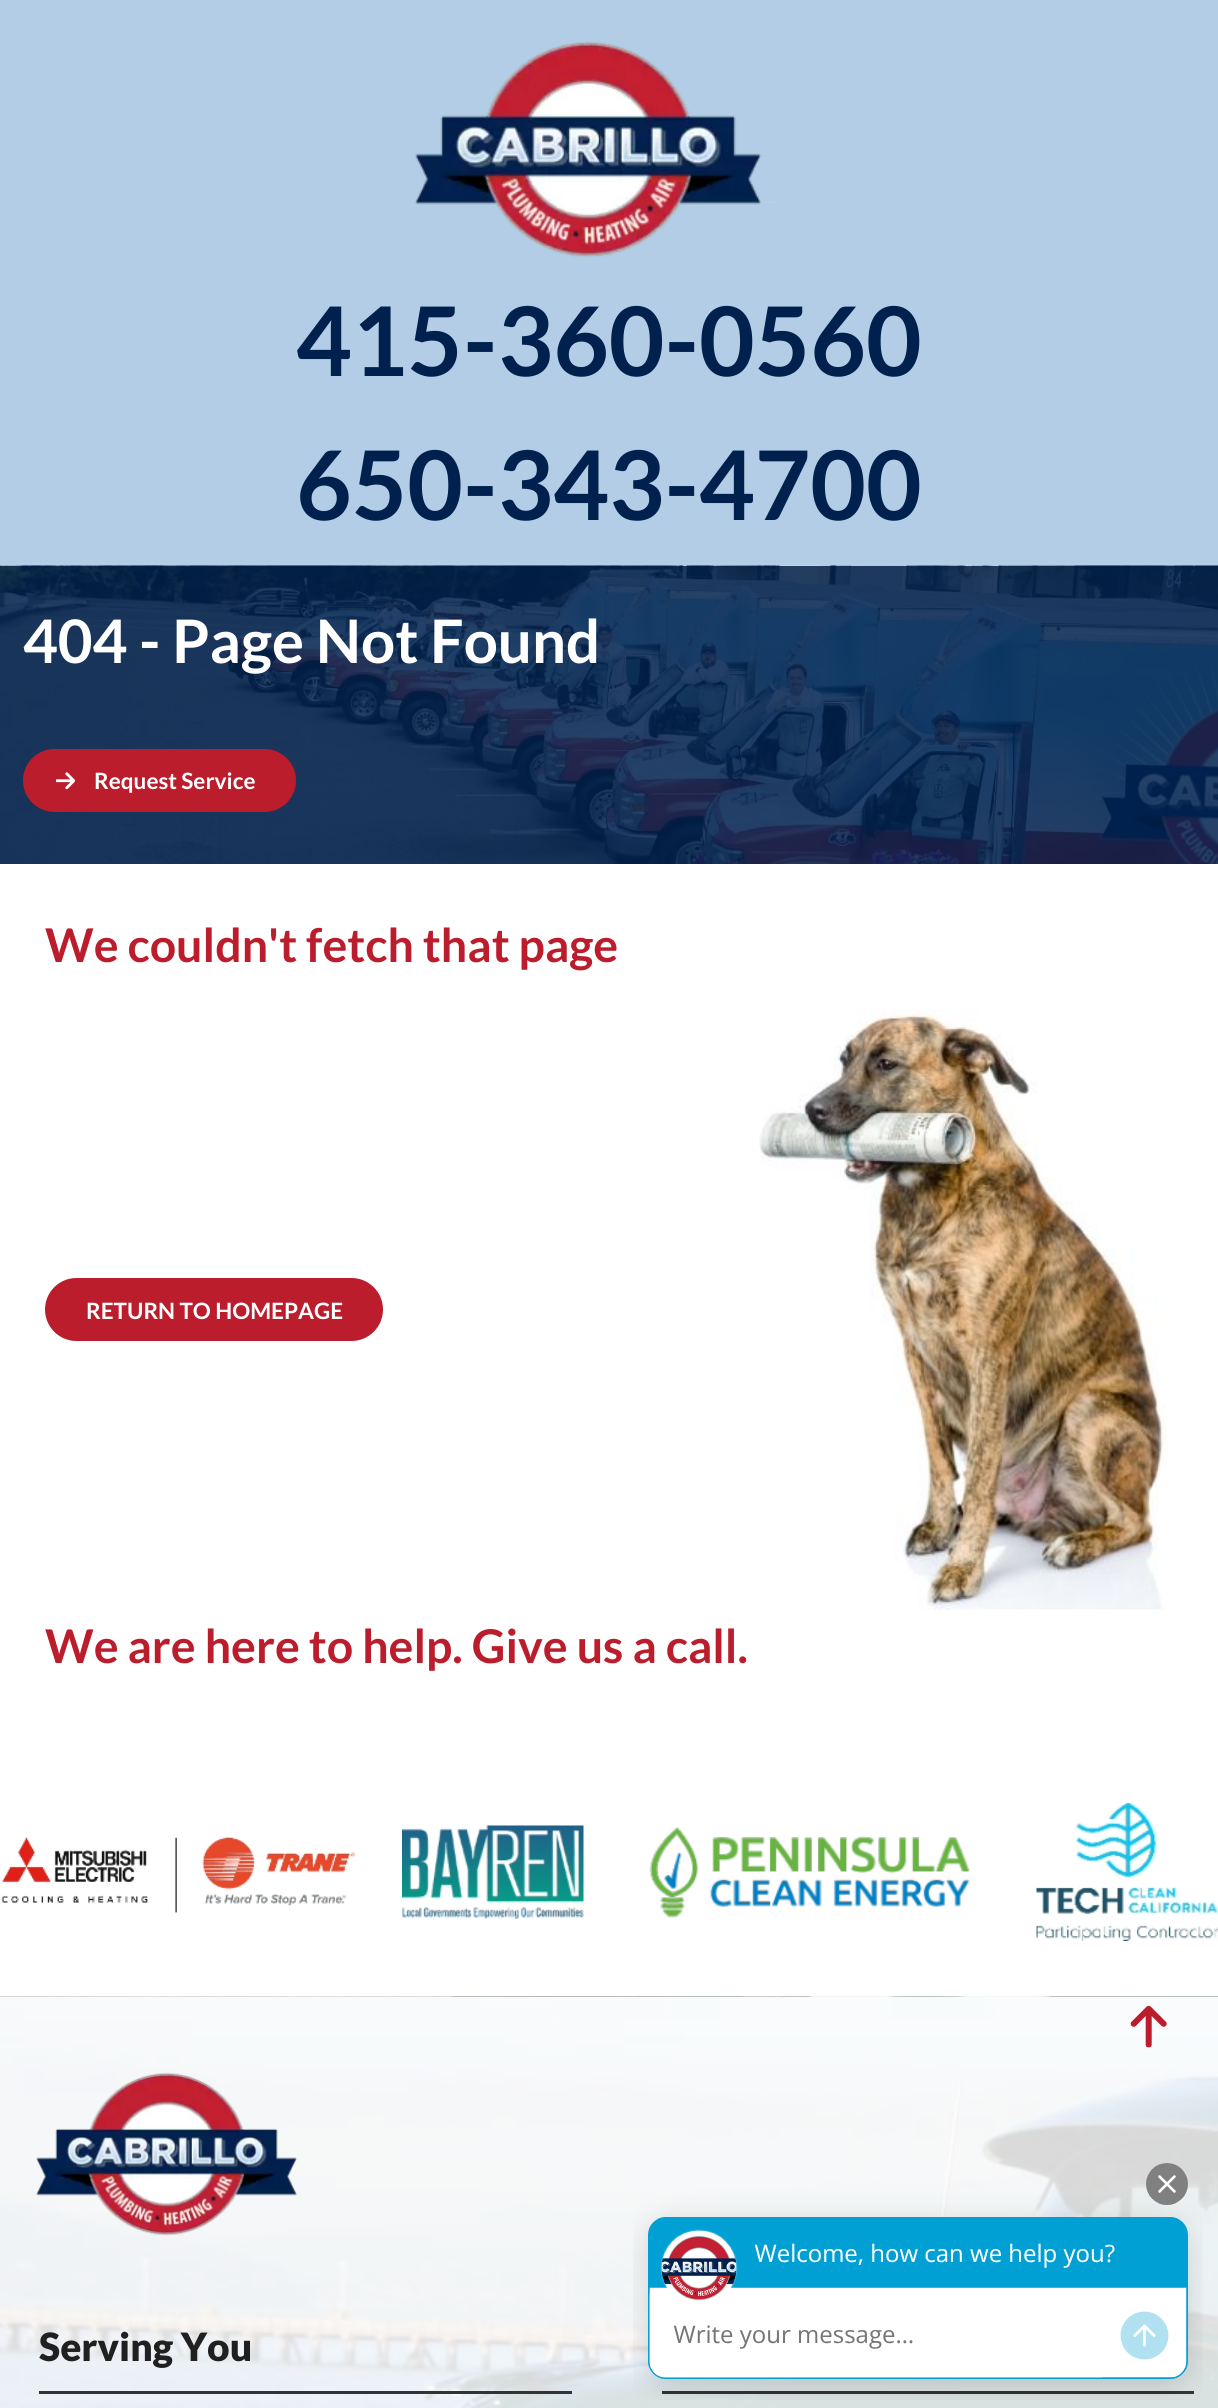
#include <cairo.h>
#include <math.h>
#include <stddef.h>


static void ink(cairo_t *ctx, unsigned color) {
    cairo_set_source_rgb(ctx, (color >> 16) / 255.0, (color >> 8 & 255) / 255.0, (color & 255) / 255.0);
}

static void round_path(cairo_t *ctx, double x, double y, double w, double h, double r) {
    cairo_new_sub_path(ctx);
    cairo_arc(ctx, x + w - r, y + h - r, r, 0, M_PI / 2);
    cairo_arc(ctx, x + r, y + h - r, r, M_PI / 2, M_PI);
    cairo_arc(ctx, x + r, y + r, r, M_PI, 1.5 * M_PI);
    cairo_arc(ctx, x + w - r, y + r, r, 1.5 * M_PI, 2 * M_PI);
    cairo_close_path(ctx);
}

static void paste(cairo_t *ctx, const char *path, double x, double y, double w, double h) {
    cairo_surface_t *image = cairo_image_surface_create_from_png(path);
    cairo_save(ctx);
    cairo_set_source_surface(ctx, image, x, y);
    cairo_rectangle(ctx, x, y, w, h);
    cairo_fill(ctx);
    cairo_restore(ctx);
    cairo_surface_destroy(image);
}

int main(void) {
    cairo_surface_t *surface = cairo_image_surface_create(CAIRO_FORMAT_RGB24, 1218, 2408);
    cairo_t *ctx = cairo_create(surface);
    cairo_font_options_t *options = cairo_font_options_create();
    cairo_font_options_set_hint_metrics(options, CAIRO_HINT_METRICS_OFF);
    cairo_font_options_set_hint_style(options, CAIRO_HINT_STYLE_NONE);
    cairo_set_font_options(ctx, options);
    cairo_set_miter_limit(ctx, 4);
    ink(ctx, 0xFFFFFF);
    cairo_paint(ctx);
    ink(ctx, 0xB2CDE5);
    cairo_rectangle(ctx, 0, 0, 1218, 566);
    cairo_fill(ctx);
    paste(ctx, "media/1.png", 415, 41, 362, 232);
    cairo_select_font_face(ctx, "Lato", CAIRO_FONT_SLANT_NORMAL, CAIRO_FONT_WEIGHT_BOLD);
    cairo_set_font_size(ctx, 96);
    ink(ctx, 0x00214E);
    cairo_move_to(ctx, 296, 376);
    cairo_show_text(ctx, "415-360-0560");
    cairo_move_to(ctx, 296, 520);
    cairo_show_text(ctx, "650-343-4700");
    paste(ctx, "media/2.png", 0, 565, 1218, 299);
    cairo_set_font_size(ctx, 60);
    ink(ctx, 0xFFFFFF);
    cairo_move_to(ctx, 23, 663);
    cairo_show_text(ctx, "404 - Page Not Found");
    ink(ctx, 0xBB1D2D);
    round_path(ctx, 24.5, 750.5, 270, 60, 30);
    cairo_fill_preserve(ctx);
    cairo_set_line_width(ctx, 3);
    cairo_stroke(ctx);
    paste(ctx, "media/3.png", 56, 772, 19, 18);
    cairo_set_font_size(ctx, 22.5);
    ink(ctx, 0xFFFFFF);
    cairo_move_to(ctx, 94, 789);
    cairo_show_text(ctx, "Request Service");
    cairo_set_font_size(ctx, 46.5);
    ink(ctx, 0xBB1D2D);
    cairo_move_to(ctx, 45, 962);
    cairo_show_text(ctx, "We couldn't fetch that page");
    round_path(ctx, 46.5, 1279.5, 335, 60, 30);
    cairo_fill_preserve(ctx);
    cairo_stroke(ctx);
    cairo_set_font_size(ctx, 22.5);
    ink(ctx, 0xFFFFFF);
    cairo_move_to(ctx, 86, 1319);
    cairo_show_text(ctx, "RETURN TO HOMEPAGE");
    paste(ctx, "media/4.png", 759, 1009, 408, 601);
    cairo_set_font_size(ctx, 46.5);
    ink(ctx, 0xBB1D2D);
    cairo_move_to(ctx, 45, 1663);
    cairo_show_text(ctx, "We are here to help. Give us a call.");
    paste(ctx, "media/5.png", 1, 1836, 355, 77);
    paste(ctx, "media/6.png", 402, 1825, 182, 94);
    paste(ctx, "media/7.png", 649, 1827, 322, 92);
    paste(ctx, "media/8.png", 1036, 1803, 182, 138);
    paste(ctx, "media/9.png", 0, 1996, 1218, 412);
    paste(ctx, "media/10.png", 1130, 2005, 37, 43);
    paste(ctx, "media/11.png", 36, 2072, 262, 164);
    ink(ctx, 0x333333);
    cairo_rectangle(ctx, 39, 2391, 533, 3);
    cairo_fill(ctx);
    cairo_select_font_face(ctx, "Lato Black", CAIRO_FONT_SLANT_NORMAL, CAIRO_FONT_WEIGHT_NORMAL);
    cairo_set_font_size(ctx, 39);
    ink(ctx, 0x202020);
    cairo_move_to(ctx, 39, 2361);
    cairo_show_text(ctx, "Serving You");
    ink(ctx, 0x333333);
    cairo_rectangle(ctx, 662, 2391, 532, 3);
    cairo_fill(ctx);
    paste(ctx, "media/12.png", 633, 2163, 570, 237);
    cairo_surface_write_to_png(surface, "image.png");
    cairo_font_options_destroy(options);
    cairo_destroy(ctx);
    cairo_surface_destroy(surface);
    return 0;
}
